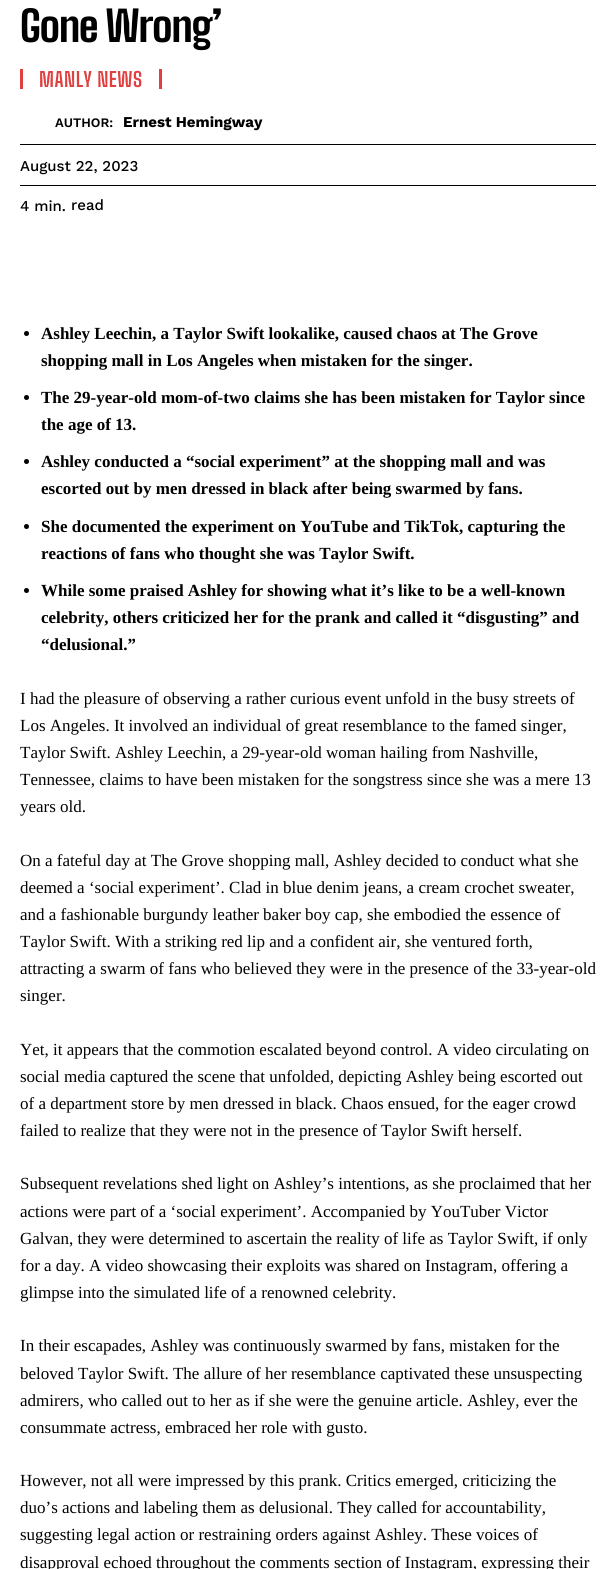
#include <cairo.h>
#include <math.h>
#include <stddef.h>

typedef struct { double x, y; const char *s; } line_t;

static void ink(cairo_t *ctx, unsigned color) {
    cairo_set_source_rgb(ctx, (color >> 16) / 255.0, (color >> 8 & 255) / 255.0, (color & 255) / 255.0);
}

static void write_spaced(cairo_t *ctx, double x, double y, const char *s, double letter, double word) {
    cairo_move_to(ctx, x, y);
    while (*s) {
        char ch[5] = {0};
        int n = 0;
        do ch[n++] = *s++; while ((*s & 0xC0) == 0x80);
        cairo_show_text(ctx, ch);
        cairo_rel_move_to(ctx, letter + word * (*ch == ' '), 0);
    }
}

int main(void) {
    cairo_surface_t *surface = cairo_image_surface_create(CAIRO_FORMAT_RGB24, 616, 1569);
    cairo_t *ctx = cairo_create(surface);
    cairo_font_options_t *options = cairo_font_options_create();
    cairo_font_options_set_hint_metrics(options, CAIRO_HINT_METRICS_OFF);
    cairo_font_options_set_hint_style(options, CAIRO_HINT_STYLE_NONE);
    cairo_set_font_options(ctx, options);
    cairo_set_miter_limit(ctx, 4);
    ink(ctx, 0xFFFFFF);
    cairo_paint(ctx);
    cairo_select_font_face(ctx, "Big Shoulders Text ExtraBold", CAIRO_FONT_SLANT_NORMAL, CAIRO_FONT_WEIGHT_NORMAL);
    cairo_set_font_size(ctx, 42);
    ink(ctx, 0x000000);
    write_spaced(ctx, 20, 42, "Gone Wrong’", -1, 0);
    ink(ctx, 0xE04040);
    cairo_rectangle(ctx, 159, 69, 3, 20);
    cairo_fill(ctx);
    cairo_rectangle(ctx, 20, 69, 3, 20);
    cairo_fill(ctx);
    cairo_select_font_face(ctx, "Big Shoulders Text", CAIRO_FONT_SLANT_NORMAL, CAIRO_FONT_WEIGHT_BOLD);
    cairo_set_font_size(ctx, 20);
    write_spaced(ctx, 39, 87, "MANLY NEWS", 0.5, 0);
    cairo_select_font_face(ctx, "Work Sans SemiBold", CAIRO_FONT_SLANT_NORMAL, CAIRO_FONT_WEIGHT_NORMAL);
    cairo_set_font_size(ctx, 13);
    ink(ctx, 0x000000);
    cairo_move_to(ctx, 55, 127);
    cairo_show_text(ctx, "AUTHOR:");
    cairo_select_font_face(ctx, "Work Sans", CAIRO_FONT_SLANT_NORMAL, CAIRO_FONT_WEIGHT_BOLD);
    cairo_set_font_size(ctx, 15);
    cairo_move_to(ctx, 123, 127);
    cairo_show_text(ctx, "Ernest Hemingway");
    cairo_rectangle(ctx, 20, 144, 576, 1);
    cairo_fill(ctx);
    cairo_rectangle(ctx, 20, 185, 576, 1);
    cairo_fill(ctx);
    cairo_select_font_face(ctx, "Work Sans Medium", CAIRO_FONT_SLANT_NORMAL, CAIRO_FONT_WEIGHT_NORMAL);
    {
        static const line_t items[] = {
            {20, 171, "August 22, 2023"},
            {20, 211, "4 min."},
            {71, 210, "read"},
        };
        for (size_t i = 0; i < sizeof items / sizeof *items; i++) {
            cairo_move_to(ctx, items[i].x, items[i].y);
            cairo_show_text(ctx, items[i].s);
        }
    }
    cairo_new_path(ctx);
    cairo_arc(ctx, 26.5, 333.5, 2.5, 0, 2 * M_PI);
    cairo_fill(ctx);
    cairo_select_font_face(ctx, "Liberation Serif", CAIRO_FONT_SLANT_NORMAL, CAIRO_FONT_WEIGHT_BOLD);
    cairo_set_font_size(ctx, 17);
    cairo_move_to(ctx, 41, 339);
    cairo_show_text(ctx, "Ashley Leechin, a Taylor Swift lookalike, caused chaos at The Grove");
    cairo_move_to(ctx, 41, 366);
    cairo_show_text(ctx, "shopping mall in Los Angeles when mistaken for the singer.");
    cairo_new_path(ctx);
    cairo_arc(ctx, 26.5, 397.5, 2.5, 0, 2 * M_PI);
    cairo_fill(ctx);
    cairo_move_to(ctx, 41, 403);
    cairo_show_text(ctx, "The 29-year-old mom-of-two claims she has been mistaken for Taylor since");
    cairo_move_to(ctx, 41, 430);
    cairo_show_text(ctx, "the age of 13.");
    cairo_new_path(ctx);
    cairo_arc(ctx, 26.5, 461.5, 2.5, 0, 2 * M_PI);
    cairo_fill(ctx);
    cairo_move_to(ctx, 41, 467);
    cairo_show_text(ctx, "Ashley conducted a “social experiment” at the shopping mall and was");
    cairo_move_to(ctx, 41, 494);
    cairo_show_text(ctx, "escorted out by men dressed in black after being swarmed by fans.");
    cairo_new_path(ctx);
    cairo_arc(ctx, 26.5, 526.5, 2.5, 0, 2 * M_PI);
    cairo_fill(ctx);
    cairo_move_to(ctx, 41, 532);
    cairo_show_text(ctx, "She documented the experiment on YouTube and TikTok, capturing the");
    cairo_move_to(ctx, 41, 559);
    cairo_show_text(ctx, "reactions of fans who thought she was Taylor Swift.");
    cairo_new_path(ctx);
    cairo_arc(ctx, 26.5, 590.5, 2.5, 0, 2 * M_PI);
    cairo_fill(ctx);
    {
        static const line_t items[] = {
            {41, 596, "While some praised Ashley for showing what it’s like to be a well-known"},
            {41, 623, "celebrity, others criticized her for the prank and called it “disgusting” and"},
            {41, 650, "“delusional.”"},
        };
        for (size_t i = 0; i < sizeof items / sizeof *items; i++) {
            cairo_move_to(ctx, items[i].x, items[i].y);
            cairo_show_text(ctx, items[i].s);
        }
    }
    cairo_select_font_face(ctx, "Liberation Serif", CAIRO_FONT_SLANT_NORMAL, CAIRO_FONT_WEIGHT_NORMAL);
    {
        static const line_t items[] = {
            {20, 704, "I had the pleasure of observing a rather curious event unfold in the busy streets of"},
            {20, 731, "Los Angeles. It involved an individual of great resemblance to the famed singer,"},
            {20, 758, "Taylor Swift. Ashley Leechin, a 29-year-old woman hailing from Nashville,"},
            {20, 785, "Tennessee, claims to have been mistaken for the songstress since she was a mere 13"},
            {20, 812, "years old."},
            {20, 866, "On a fateful day at The Grove shopping mall, Ashley decided to conduct what she"},
            {20, 893, "deemed a ‘social experiment’. Clad in blue denim jeans, a cream crochet sweater,"},
            {20, 920, "and a fashionable burgundy leather baker boy cap, she embodied the essence of"},
            {20, 947, "Taylor Swift. With a striking red lip and a confident air, she ventured forth,"},
            {20, 974, "attracting a swarm of fans who believed they were in the presence of the 33-year-old"},
            {20, 1001, "singer."},
            {20, 1055, "Yet, it appears that the commotion escalated beyond control. A video circulating on"},
            {20, 1082, "social media captured the scene that unfolded, depicting Ashley being escorted out"},
            {20, 1109, "of a department store by men dressed in black. Chaos ensued, for the eager crowd"},
            {20, 1136, "failed to realize that they were not in the presence of Taylor Swift herself."},
            {20, 1189, "Subsequent revelations shed light on Ashley’s intentions, as she proclaimed that her"},
            {20, 1217, "actions were part of a ‘social experiment’. Accompanied by YouTuber Victor"},
            {20, 1244, "Galvan, they were determined to ascertain the reality of life as Taylor Swift, if only"},
            {20, 1271, "for a day. A video showcasing their exploits was shared on Instagram, offering a"},
            {20, 1298, "glimpse into the simulated life of a renowned celebrity."},
            {20, 1351, "In their escapades, Ashley was continuously swarmed by fans, mistaken for the"},
            {20, 1379, "beloved Taylor Swift. The allure of her resemblance captivated these unsuspecting"},
            {20, 1406, "admirers, who called out to her as if she were the genuine article. Ashley, ever the"},
            {20, 1433, "consummate actress, embraced her role with gusto."},
            {20, 1486, "However, not all were impressed by this prank. Critics emerged, criticizing the"},
            {20, 1513, "duo’s actions and labeling them as delusional. They called for accountability,"},
            {20, 1540, "suggesting legal action or restraining orders against Ashley. These voices of"},
            {20, 1568, "disapproval echoed throughout the comments section of Instagram, expressing their"},
        };
        for (size_t i = 0; i < sizeof items / sizeof *items; i++) {
            cairo_move_to(ctx, items[i].x, items[i].y);
            cairo_show_text(ctx, items[i].s);
        }
    }
    cairo_surface_write_to_png(surface, "image.png");
    cairo_font_options_destroy(options);
    cairo_destroy(ctx);
    cairo_surface_destroy(surface);
    return 0;
}
